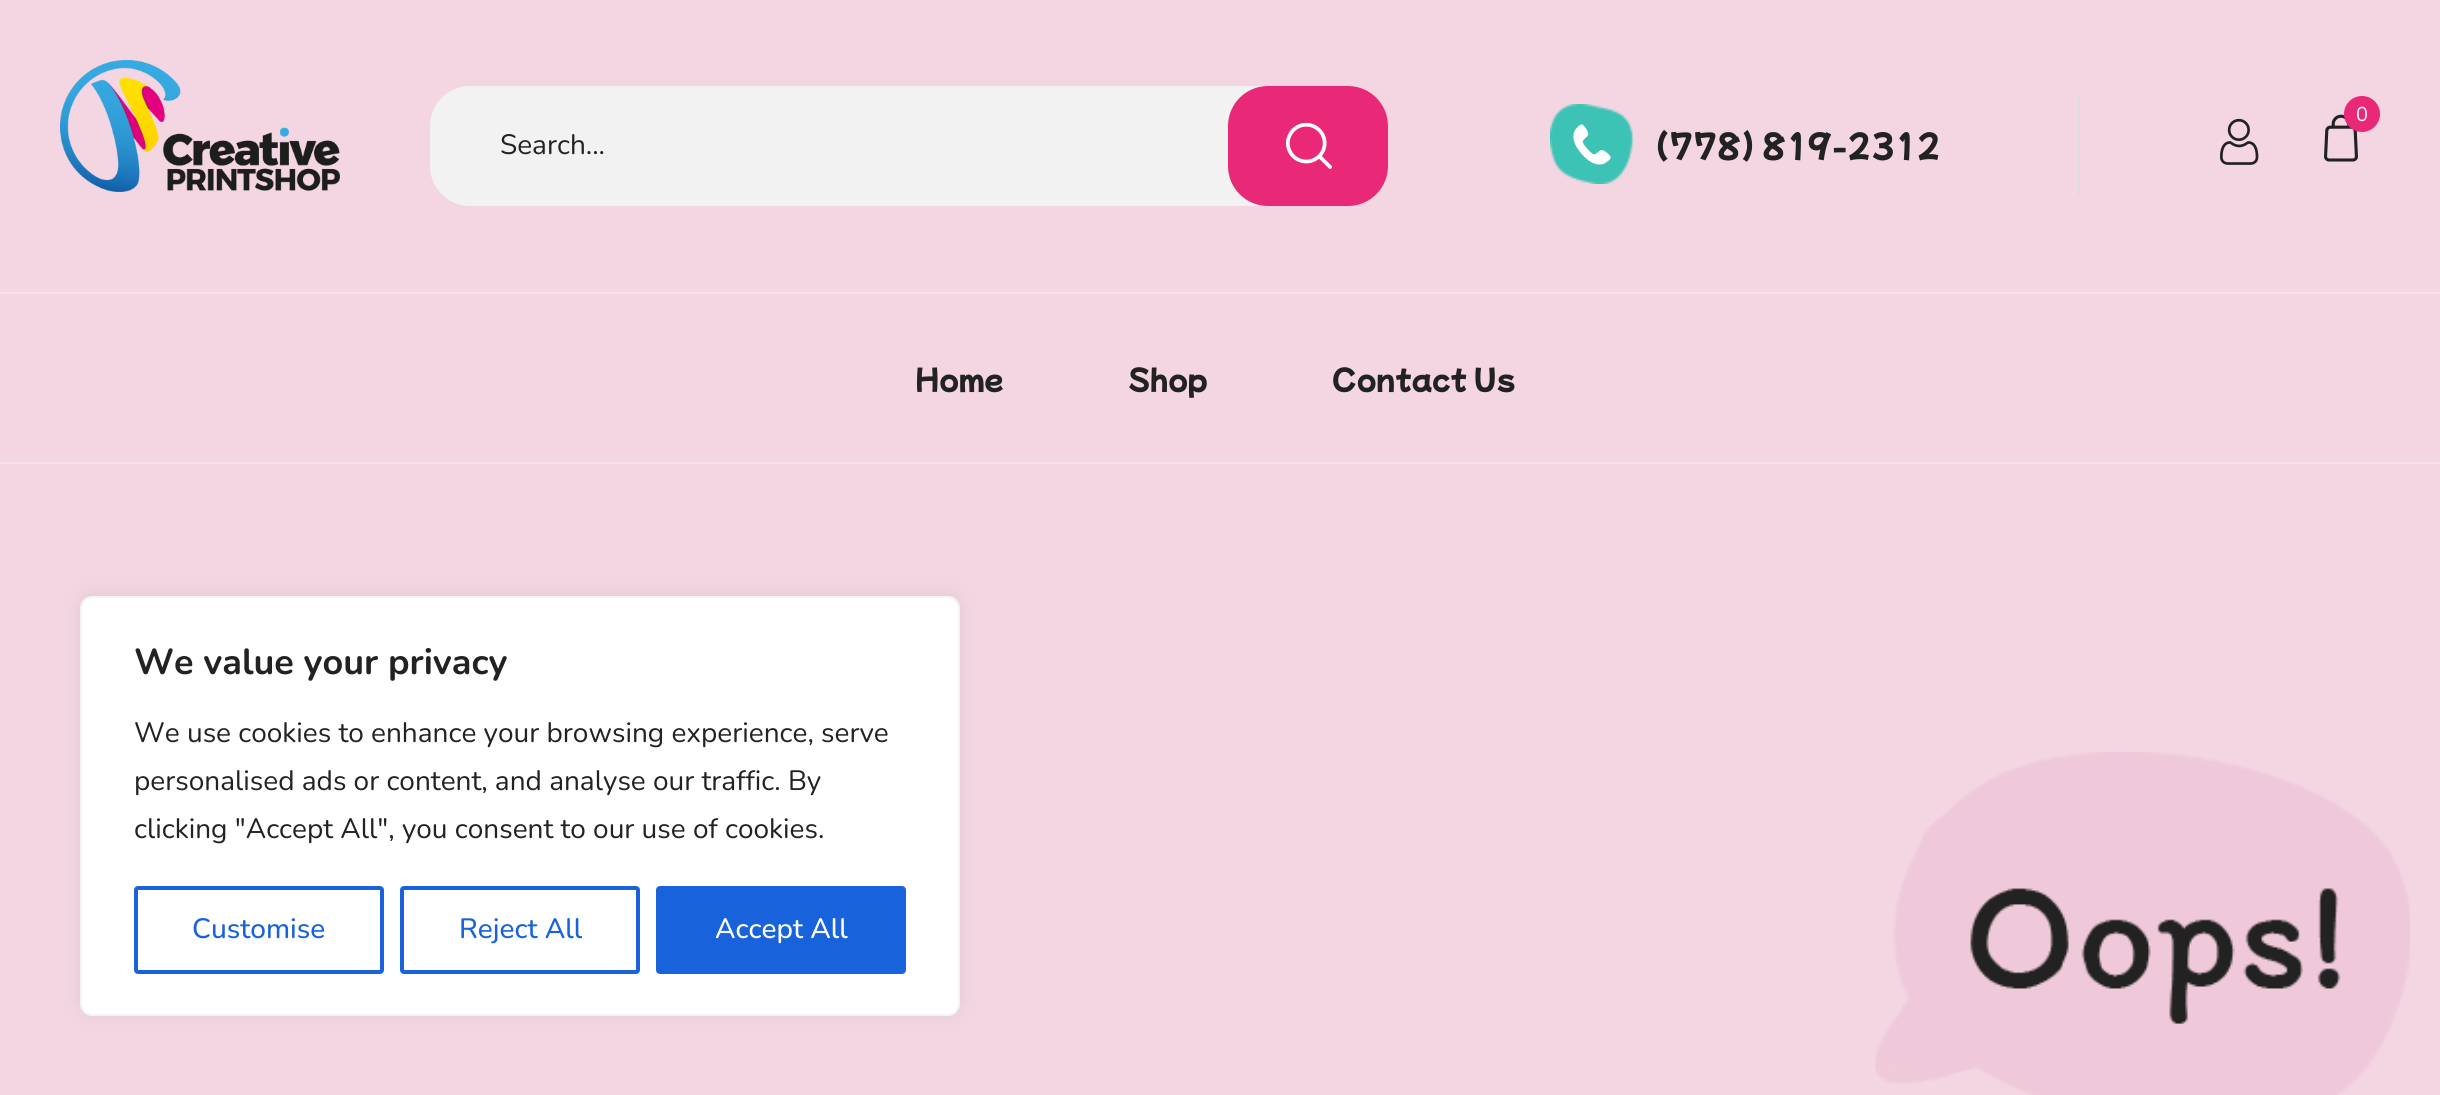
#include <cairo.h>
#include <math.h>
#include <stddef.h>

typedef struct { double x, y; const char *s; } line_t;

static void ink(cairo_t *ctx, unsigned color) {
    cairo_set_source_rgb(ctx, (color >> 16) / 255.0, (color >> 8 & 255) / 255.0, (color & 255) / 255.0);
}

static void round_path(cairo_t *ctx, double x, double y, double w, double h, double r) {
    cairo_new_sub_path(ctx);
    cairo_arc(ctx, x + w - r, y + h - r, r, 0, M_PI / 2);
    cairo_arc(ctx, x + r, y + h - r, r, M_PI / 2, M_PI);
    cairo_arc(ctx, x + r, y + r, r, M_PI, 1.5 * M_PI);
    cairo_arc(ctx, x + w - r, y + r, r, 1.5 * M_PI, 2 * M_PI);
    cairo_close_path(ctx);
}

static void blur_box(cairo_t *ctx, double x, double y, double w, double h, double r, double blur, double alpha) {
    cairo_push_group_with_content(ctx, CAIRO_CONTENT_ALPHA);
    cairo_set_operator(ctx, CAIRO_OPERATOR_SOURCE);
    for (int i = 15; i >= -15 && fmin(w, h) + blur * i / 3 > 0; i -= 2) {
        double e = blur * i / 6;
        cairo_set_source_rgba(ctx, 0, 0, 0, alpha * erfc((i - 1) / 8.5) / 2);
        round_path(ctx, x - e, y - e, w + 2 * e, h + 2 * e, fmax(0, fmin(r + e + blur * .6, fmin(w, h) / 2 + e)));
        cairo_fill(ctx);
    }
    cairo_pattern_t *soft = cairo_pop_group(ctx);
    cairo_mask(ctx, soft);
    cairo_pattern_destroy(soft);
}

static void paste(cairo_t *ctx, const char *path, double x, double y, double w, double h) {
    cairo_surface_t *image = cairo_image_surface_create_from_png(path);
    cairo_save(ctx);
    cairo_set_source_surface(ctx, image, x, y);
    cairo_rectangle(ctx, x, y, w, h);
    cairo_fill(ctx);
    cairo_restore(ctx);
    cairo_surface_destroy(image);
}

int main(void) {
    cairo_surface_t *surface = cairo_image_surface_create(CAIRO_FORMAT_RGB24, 2440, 1095);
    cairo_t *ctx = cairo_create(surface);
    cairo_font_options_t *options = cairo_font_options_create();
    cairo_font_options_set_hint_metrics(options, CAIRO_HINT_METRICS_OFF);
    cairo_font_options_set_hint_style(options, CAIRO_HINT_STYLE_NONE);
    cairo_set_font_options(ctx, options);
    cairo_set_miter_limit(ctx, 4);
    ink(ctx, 0xF4D6E3);
    cairo_paint(ctx);
    ink(ctx, 0xF7E2EB);
    cairo_rectangle(ctx, 0, 462, 2440, 2);
    cairo_fill(ctx);
    cairo_rectangle(ctx, 0, 292, 2440, 2);
    cairo_fill(ctx);
    paste(ctx, "media/1.png", 60, 60, 280, 132);
    ink(ctx, 0xF2F2F2);
    round_path(ctx, 430, 86, 958, 120, 40);
    cairo_fill(ctx);
    cairo_select_font_face(ctx, "Nunito", CAIRO_FONT_SLANT_NORMAL, CAIRO_FONT_WEIGHT_NORMAL);
    cairo_set_font_size(ctx, 28);
    ink(ctx, 0x222222);
    cairo_move_to(ctx, 500, 154);
    cairo_show_text(ctx, "Search...");
    ink(ctx, 0xE92878);
    round_path(ctx, 1228, 86, 160, 120, 40);
    cairo_fill(ctx);
    paste(ctx, "media/2.png", 1286, 122, 46, 47);
    paste(ctx, "media/3.png", 2324, 114, 34, 48);
    cairo_arc(ctx, 2362, 114, 18, 0, 2 * M_PI);
    cairo_fill(ctx);
    cairo_set_font_size(ctx, 20);
    ink(ctx, 0xFFFFFF);
    cairo_move_to(ctx, 2356, 121);
    cairo_show_text(ctx, "0");
    paste(ctx, "media/4.png", 2220, 118, 39, 47);
    paste(ctx, "media/5.png", 1550, 104, 84, 80);
    ink(ctx, 0xDDDDDD);
    cairo_rectangle(ctx, 2078, 96, 2, 100);
    cairo_fill(ctx);
    paste(ctx, "media/6.png", 1573, 124, 38, 41);
    cairo_select_font_face(ctx, "Mochiy Pop P One", CAIRO_FONT_SLANT_NORMAL, CAIRO_FONT_WEIGHT_NORMAL);
    cairo_set_font_size(ctx, 32);
    ink(ctx, 0x222222);
    cairo_move_to(ctx, 1655, 158);
    cairo_show_text(ctx, "(778) 819-2312");
    cairo_set_font_size(ctx, 28);
    {
        static const line_t items[] = {
            {915, 390, "Home"},
            {1128, 390, "Shop"},
            {1332, 390, "Contact Us"},
        };
        for (size_t i = 0; i < sizeof items / sizeof *items; i++) {
            cairo_move_to(ctx, items[i].x, items[i].y);
            cairo_show_text(ctx, items[i].s);
        }
    }
    paste(ctx, "media/7.png", 1875, 752, 535, 343);
    ink(ctx, 0xACABAB);
    blur_box(ctx, 80, 594, 880, 420, 12, 10, 0.3);
    ink(ctx, 0xFFFFFF);
    round_path(ctx, 81, 597, 878, 418, 11);
    cairo_fill_preserve(ctx);
    ink(ctx, 0xF4F4F4);
    cairo_stroke(ctx);
    cairo_select_font_face(ctx, "Nunito", CAIRO_FONT_SLANT_NORMAL, CAIRO_FONT_WEIGHT_BOLD);
    cairo_set_font_size(ctx, 36);
    ink(ctx, 0x222222);
    cairo_move_to(ctx, 134, 674);
    cairo_show_text(ctx, "We value your privacy");
    cairo_select_font_face(ctx, "Nunito", CAIRO_FONT_SLANT_NORMAL, CAIRO_FONT_WEIGHT_NORMAL);
    cairo_set_font_size(ctx, 28);
    {
        static const line_t items[] = {
            {134, 742, "We use cookies to enhance your browsing experience, serve"},
            {134, 790, "personalised ads or content, and analyse our traffic. By"},
            {134, 838, "clicking \"Accept All\", you consent to our use of cookies."},
        };
        for (size_t i = 0; i < sizeof items / sizeof *items; i++) {
            cairo_move_to(ctx, items[i].x, items[i].y);
            cairo_show_text(ctx, items[i].s);
        }
    }
    round_path(ctx, 136, 888, 246, 84, 2);
    ink(ctx, 0x1863DC);
    cairo_set_line_width(ctx, 4);
    cairo_stroke(ctx);
    cairo_select_font_face(ctx, "Nunito Medium", CAIRO_FONT_SLANT_NORMAL, CAIRO_FONT_WEIGHT_NORMAL);
    cairo_move_to(ctx, 192, 938);
    cairo_show_text(ctx, "Customise");
    round_path(ctx, 402, 888, 236, 84, 2);
    cairo_stroke(ctx);
    cairo_move_to(ctx, 459, 938);
    cairo_show_text(ctx, "Reject All");
    round_path(ctx, 658, 888, 246, 84, 2);
    cairo_fill_preserve(ctx);
    cairo_stroke(ctx);
    ink(ctx, 0xFFFFFF);
    cairo_move_to(ctx, 715, 938);
    cairo_show_text(ctx, "Accept All");
    cairo_surface_write_to_png(surface, "image.png");
    cairo_font_options_destroy(options);
    cairo_destroy(ctx);
    cairo_surface_destroy(surface);
    return 0;
}
